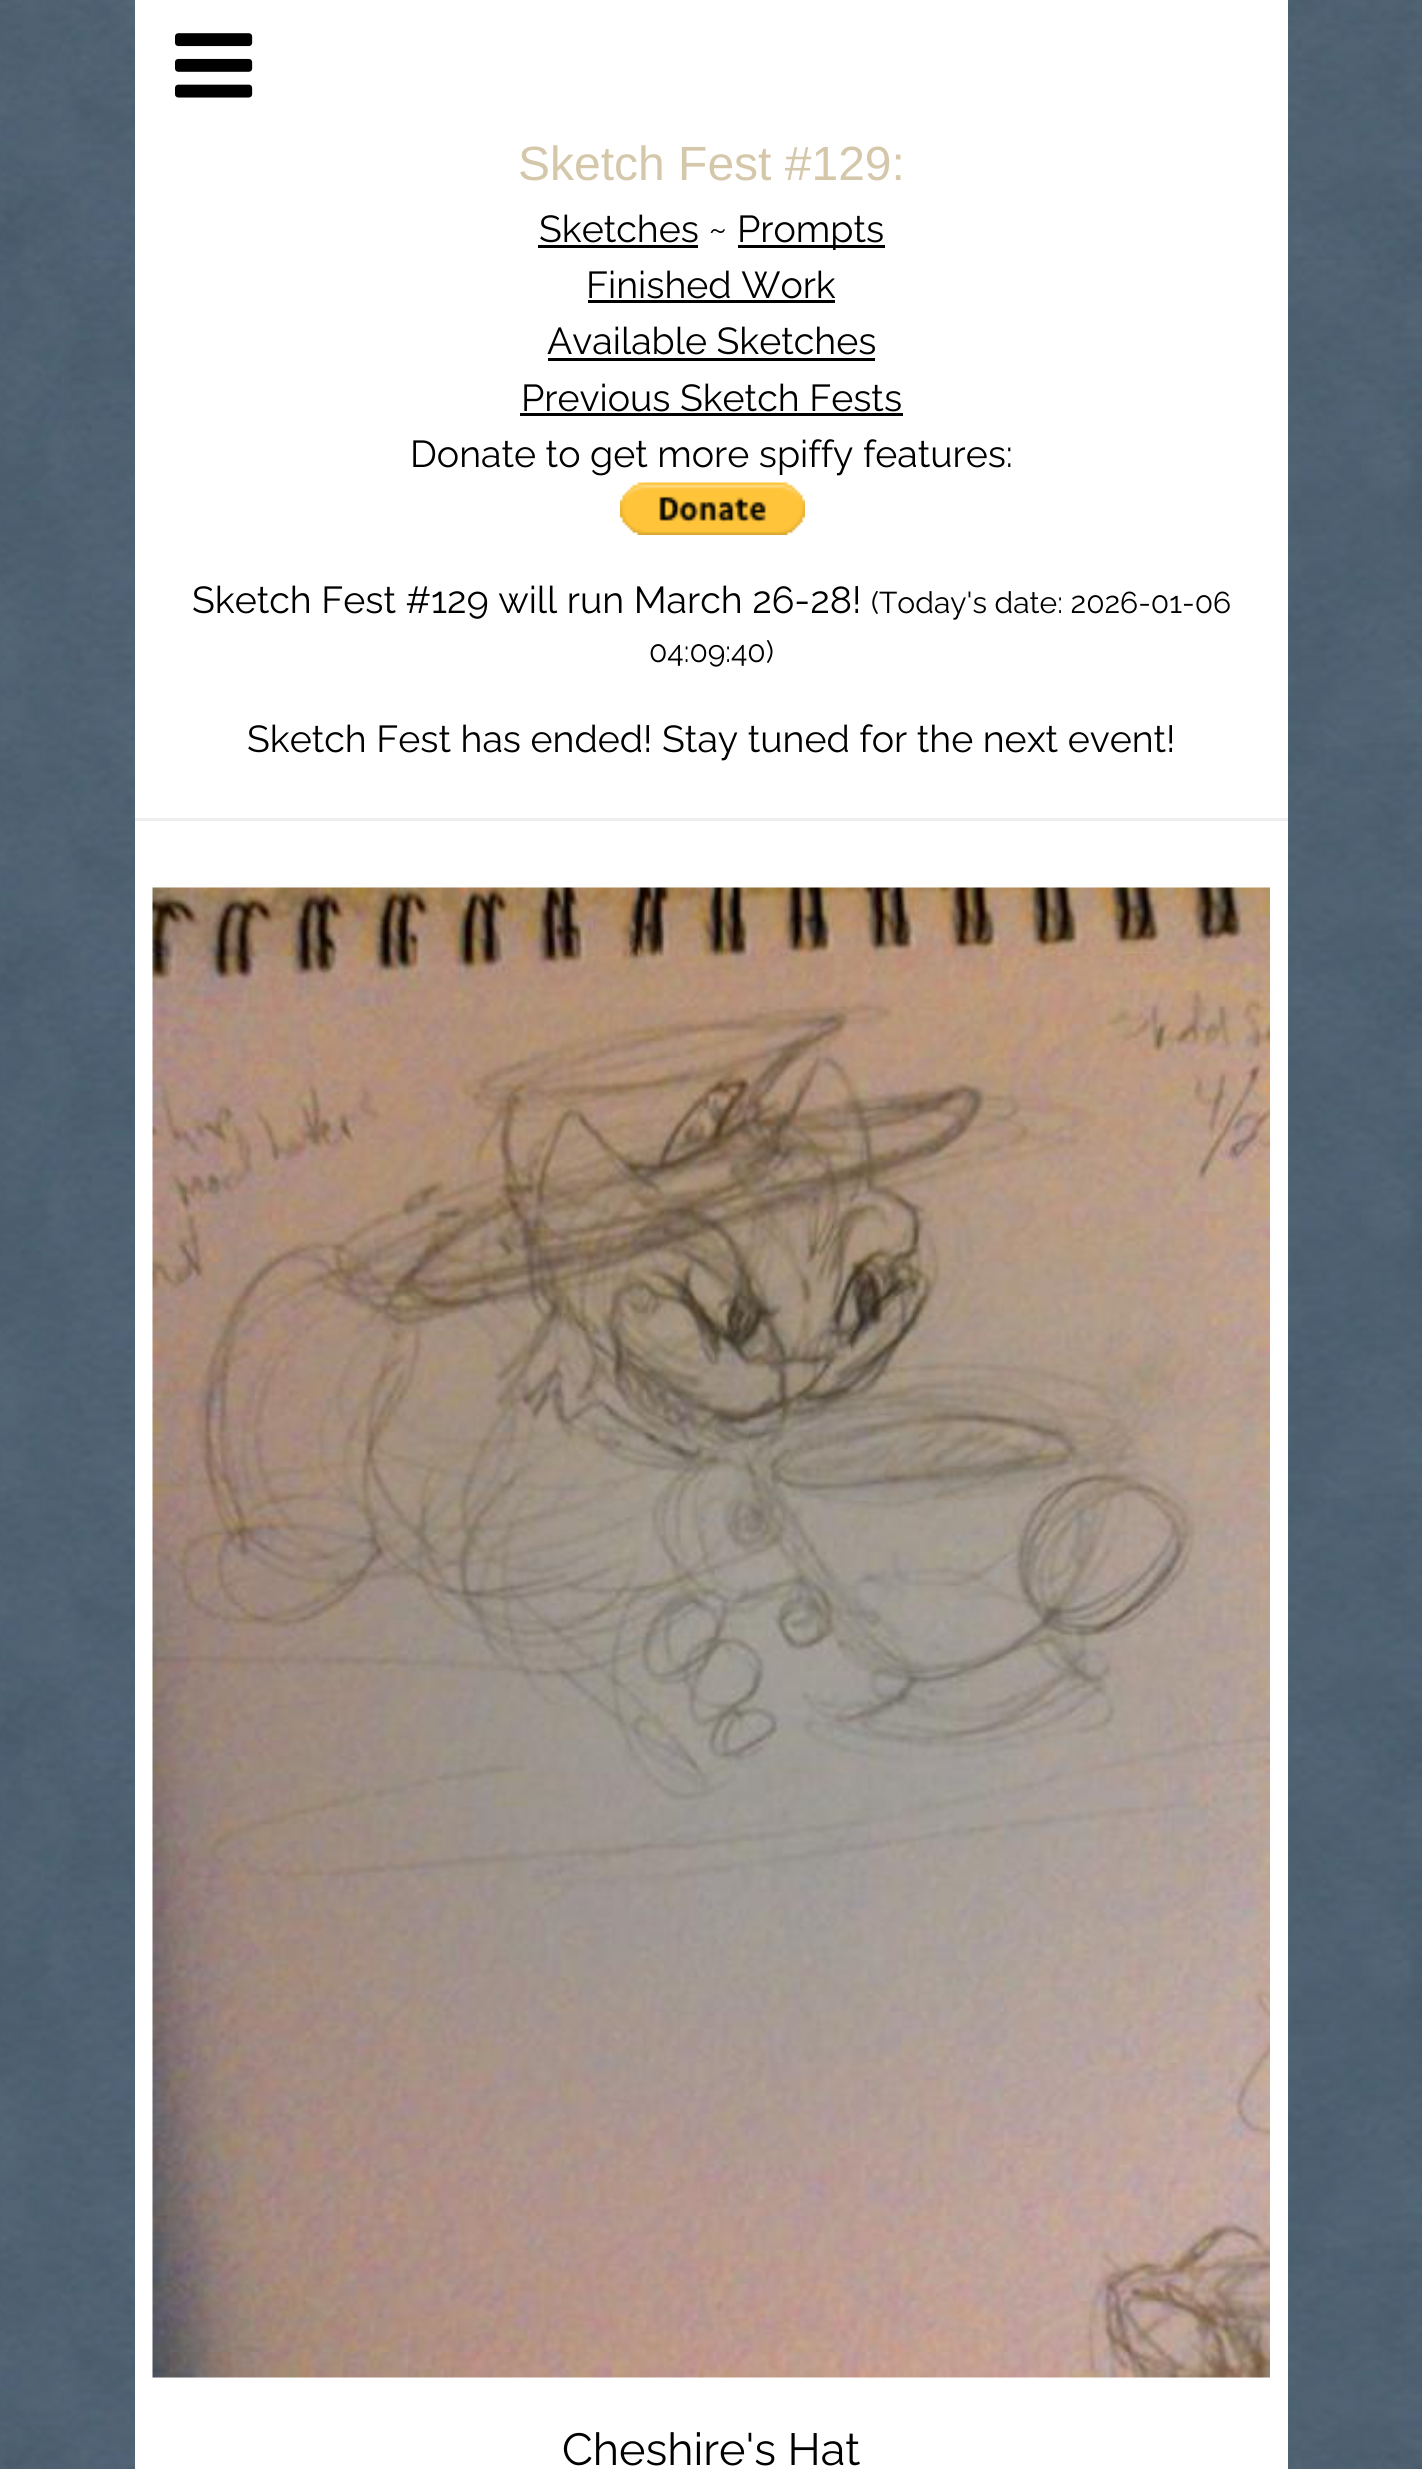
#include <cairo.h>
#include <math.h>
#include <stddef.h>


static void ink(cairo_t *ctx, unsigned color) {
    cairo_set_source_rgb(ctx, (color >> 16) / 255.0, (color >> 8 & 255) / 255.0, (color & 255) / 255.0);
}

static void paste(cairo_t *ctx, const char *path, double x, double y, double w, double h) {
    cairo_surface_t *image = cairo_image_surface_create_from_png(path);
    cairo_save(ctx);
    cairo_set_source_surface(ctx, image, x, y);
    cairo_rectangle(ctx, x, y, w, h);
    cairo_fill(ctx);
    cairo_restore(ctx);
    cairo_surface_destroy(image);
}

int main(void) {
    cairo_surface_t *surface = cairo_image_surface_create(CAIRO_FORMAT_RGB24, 1422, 2469);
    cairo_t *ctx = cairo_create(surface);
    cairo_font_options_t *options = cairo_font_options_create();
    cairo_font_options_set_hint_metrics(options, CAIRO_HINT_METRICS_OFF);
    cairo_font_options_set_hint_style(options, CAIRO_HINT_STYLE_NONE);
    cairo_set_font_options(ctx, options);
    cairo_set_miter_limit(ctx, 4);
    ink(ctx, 0xFFFFFF);
    cairo_paint(ctx);
    paste(ctx, "media/1.png", 0, 0, 1422, 2469);
    ink(ctx, 0xFFFFFF);
    cairo_rectangle(ctx, 135, 0, 1153, 2469);
    cairo_fill(ctx);
    paste(ctx, "media/2.png", 175, 33, 78, 65);
    cairo_select_font_face(ctx, "Liberation Sans", CAIRO_FONT_SLANT_NORMAL, CAIRO_FONT_WEIGHT_NORMAL);
    cairo_set_font_size(ctx, 48);
    ink(ctx, 0xD4C7AA);
    cairo_move_to(ctx, 518, 180);
    cairo_show_text(ctx, "Sketch Fest #129:");
    cairo_select_font_face(ctx, "Raleway Thin", CAIRO_FONT_SLANT_NORMAL, CAIRO_FONT_WEIGHT_NORMAL);
    cairo_set_font_size(ctx, 37.5);
    ink(ctx, 0x000000);
    cairo_move_to(ctx, 539, 242);
    cairo_show_text(ctx, "Sketches ~");
    cairo_rectangle(ctx, 538, 245, 160, 3);
    cairo_fill(ctx);
    cairo_rectangle(ctx, 738, 245, 147, 3);
    cairo_fill(ctx);
    cairo_move_to(ctx, 737, 242);
    cairo_show_text(ctx, "Prompts");
    cairo_move_to(ctx, 586, 298);
    cairo_show_text(ctx, "Finished Work");
    cairo_rectangle(ctx, 588, 300, 247, 3);
    cairo_fill(ctx);
    cairo_move_to(ctx, 547, 354);
    cairo_show_text(ctx, "Available Sketches");
    cairo_rectangle(ctx, 548, 358, 327, 3);
    cairo_fill(ctx);
    cairo_move_to(ctx, 521, 411);
    cairo_show_text(ctx, "Previous Sketch Fests");
    cairo_rectangle(ctx, 520, 413, 383, 3);
    cairo_fill(ctx);
    cairo_move_to(ctx, 410, 467);
    cairo_show_text(ctx, "Donate to get more spiffy features:");
    paste(ctx, "media/3.png", 620, 482, 185, 53);
    cairo_move_to(ctx, 192, 613);
    cairo_show_text(ctx, "Sketch Fest #129 will run March 26-28!");
    cairo_set_font_size(ctx, 30);
    cairo_move_to(ctx, 871, 613);
    cairo_show_text(ctx, "(Today's date: 2026-01-06");
    cairo_move_to(ctx, 649, 662);
    cairo_show_text(ctx, "04:09:40)");
    cairo_set_font_size(ctx, 37.5);
    cairo_move_to(ctx, 247, 752);
    cairo_show_text(ctx, "Sketch Fest has ended! Stay tuned for the next event!");
    ink(ctx, 0xEEEEEE);
    cairo_rectangle(ctx, 135, 818, 1153, 3);
    cairo_fill(ctx);
    paste(ctx, "media/4.png", 152, 887, 1118, 1491);
    cairo_set_font_size(ctx, 45);
    ink(ctx, 0x000000);
    cairo_move_to(ctx, 562, 2465);
    cairo_show_text(ctx, "Cheshire's Hat");
    cairo_surface_write_to_png(surface, "image.png");
    cairo_font_options_destroy(options);
    cairo_destroy(ctx);
    cairo_surface_destroy(surface);
    return 0;
}
